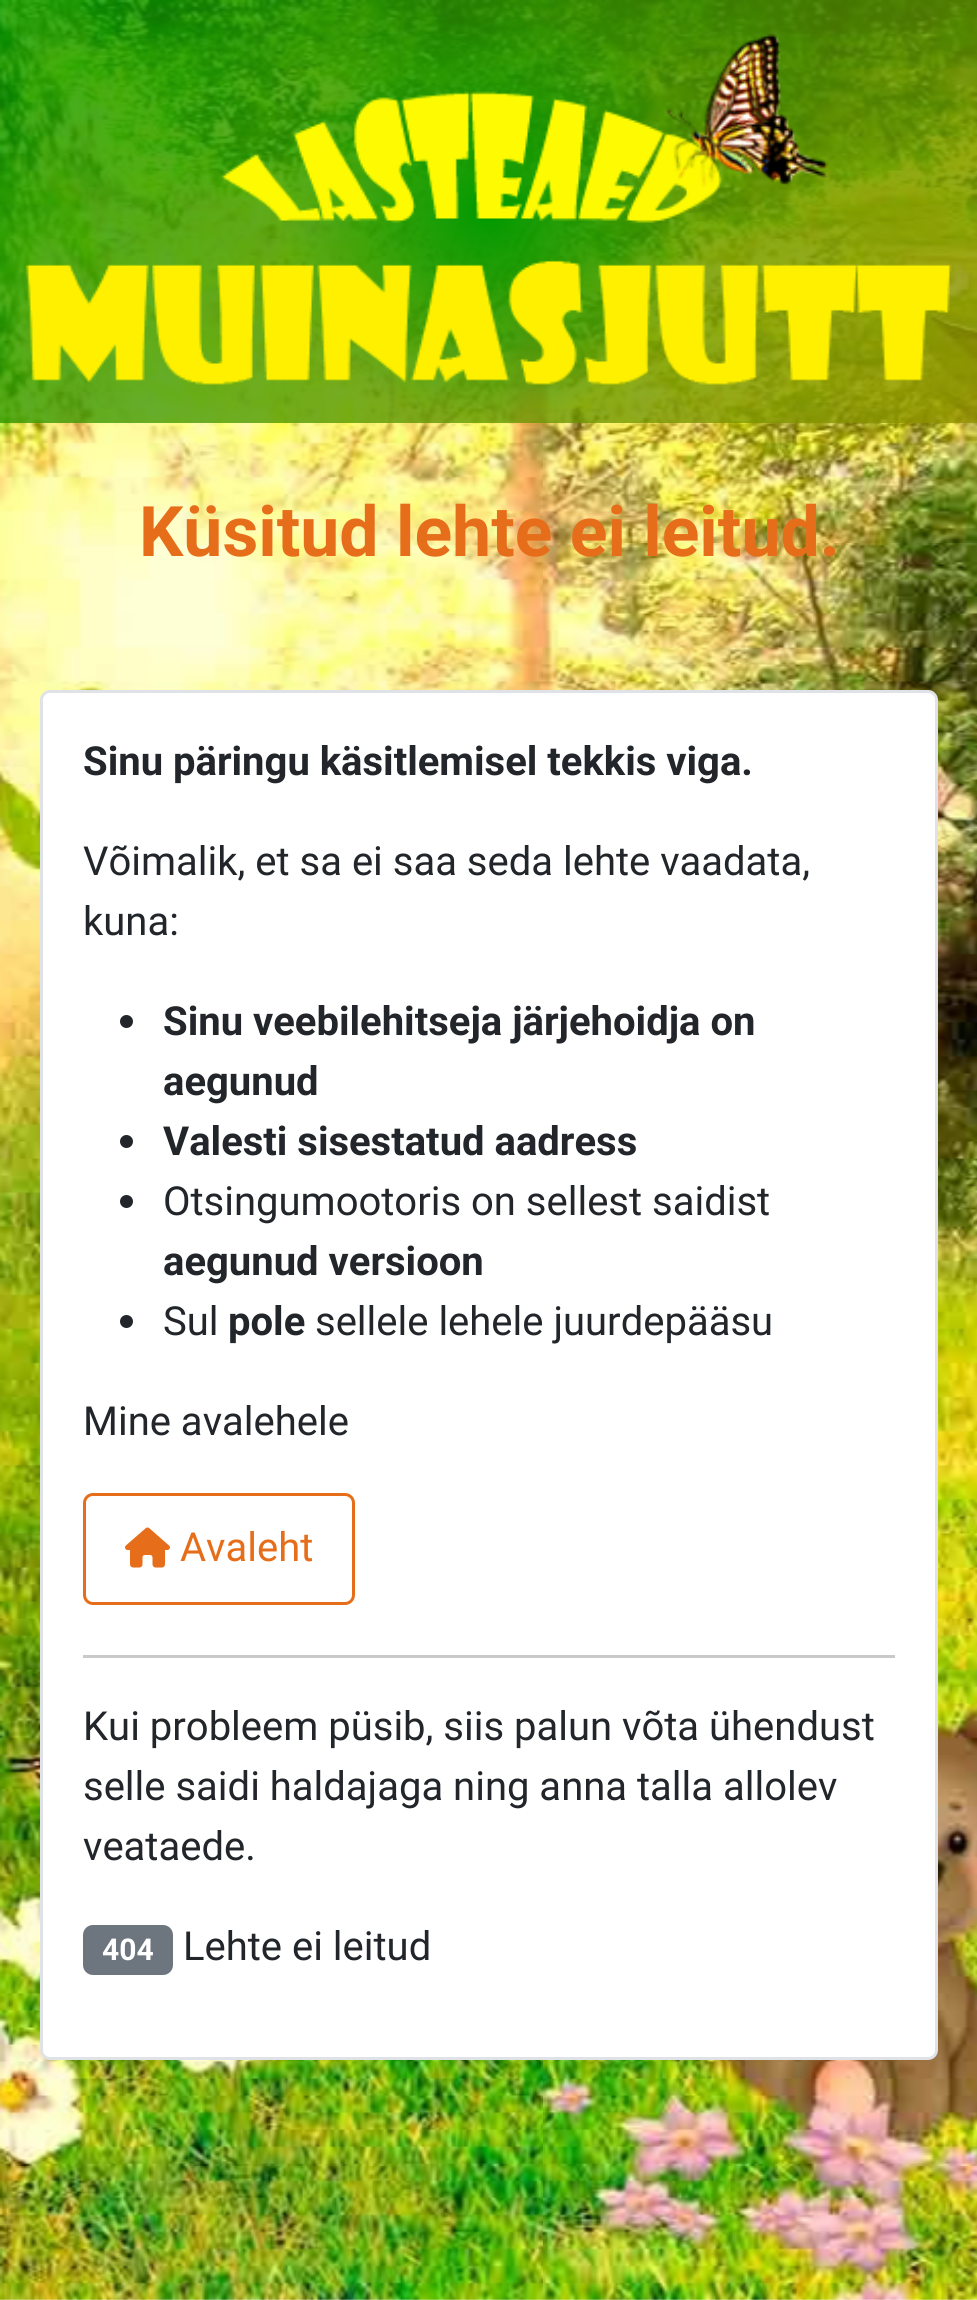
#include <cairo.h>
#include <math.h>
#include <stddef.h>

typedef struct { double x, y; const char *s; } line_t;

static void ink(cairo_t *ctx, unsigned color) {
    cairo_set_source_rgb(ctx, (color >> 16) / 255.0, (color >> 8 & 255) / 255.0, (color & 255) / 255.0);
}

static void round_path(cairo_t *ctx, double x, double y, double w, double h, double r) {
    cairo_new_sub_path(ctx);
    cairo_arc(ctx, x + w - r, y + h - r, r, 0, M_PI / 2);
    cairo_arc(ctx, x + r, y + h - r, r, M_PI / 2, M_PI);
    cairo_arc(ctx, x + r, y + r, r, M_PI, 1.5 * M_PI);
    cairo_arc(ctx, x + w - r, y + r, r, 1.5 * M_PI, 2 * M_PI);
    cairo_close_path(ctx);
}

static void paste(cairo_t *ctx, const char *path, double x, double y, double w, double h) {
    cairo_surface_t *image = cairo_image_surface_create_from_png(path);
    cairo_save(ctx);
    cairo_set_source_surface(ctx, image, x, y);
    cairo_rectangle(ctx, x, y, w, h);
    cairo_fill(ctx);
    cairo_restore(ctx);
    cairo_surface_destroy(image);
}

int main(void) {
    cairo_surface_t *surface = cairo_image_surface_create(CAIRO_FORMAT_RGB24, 977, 2300);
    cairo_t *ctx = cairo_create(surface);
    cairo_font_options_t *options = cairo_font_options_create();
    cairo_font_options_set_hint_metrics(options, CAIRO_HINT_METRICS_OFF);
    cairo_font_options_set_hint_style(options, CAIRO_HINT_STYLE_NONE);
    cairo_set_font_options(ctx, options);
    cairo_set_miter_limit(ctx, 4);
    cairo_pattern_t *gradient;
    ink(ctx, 0xFFFFFF);
    cairo_paint(ctx);
    paste(ctx, "media/1.png", 0, 0, 977, 2300);
    cairo_set_source_rgba(ctx, 0, 0.6, 0, 0.5);
    cairo_rectangle(ctx, 0, 0, 977, 423);
    cairo_fill(ctx);
    gradient = cairo_pattern_create_linear(139, -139, 839, 561);
    cairo_pattern_add_color_stop_rgba(gradient, 0, 0, 0.6, 0, 0.5);
    cairo_pattern_add_color_stop_rgba(gradient, 1, 1, 0.569, 0, 0.5);
    cairo_set_source(ctx, gradient);
    cairo_pattern_destroy(gradient);
    cairo_rectangle(ctx, 0, 0, 977, 423);
    cairo_fill(ctx);
    gradient = cairo_pattern_create_radial(489, 211, 0, 489, 211, 532);
    cairo_pattern_add_color_stop_rgba(gradient, 0, 0, 0.6, 0, 1);
    cairo_pattern_add_color_stop_rgba(gradient, 0.4, 0, 0.6, 0, 0.1);
    cairo_set_source(ctx, gradient);
    cairo_pattern_destroy(gradient);
    cairo_rectangle(ctx, 0, 0, 977, 423);
    cairo_fill(ctx);
    paste(ctx, "media/2.png", 25, 33, 927, 352);
    cairo_select_font_face(ctx, "Roboto", CAIRO_FONT_SLANT_NORMAL, CAIRO_FONT_WEIGHT_BOLD);
    cairo_set_font_size(ctx, 69.75);
    ink(ctx, 0xE66E1A);
    cairo_move_to(ctx, 139, 556);
    cairo_show_text(ctx, "Küsitud lehte ei leitud.");
    ink(ctx, 0xFFFFFF);
    round_path(ctx, 41.5, 691.5, 895, 1367, 8.5);
    cairo_fill_preserve(ctx);
    ink(ctx, 0xDFE3E7);
    cairo_set_line_width(ctx, 3);
    cairo_stroke(ctx);
    cairo_set_font_size(ctx, 40);
    ink(ctx, 0x22262A);
    cairo_move_to(ctx, 83, 775);
    cairo_show_text(ctx, "Sinu päringu käsitlemisel tekkis viga.");
    cairo_select_font_face(ctx, "Roboto", CAIRO_FONT_SLANT_NORMAL, CAIRO_FONT_WEIGHT_NORMAL);
    cairo_move_to(ctx, 83, 875);
    cairo_show_text(ctx, "Võimalik, et sa ei saa seda lehte vaadata,");
    cairo_move_to(ctx, 83, 935);
    cairo_show_text(ctx, "kuna:");
    cairo_new_path(ctx);
    cairo_arc(ctx, 126.5, 1021.5, 6.5, 0, 2 * M_PI);
    cairo_fill(ctx);
    cairo_select_font_face(ctx, "Roboto", CAIRO_FONT_SLANT_NORMAL, CAIRO_FONT_WEIGHT_BOLD);
    cairo_move_to(ctx, 163, 1035);
    cairo_show_text(ctx, "Sinu veebilehitseja järjehoidja on");
    cairo_move_to(ctx, 163, 1095);
    cairo_show_text(ctx, "aegunud");
    cairo_new_path(ctx);
    cairo_arc(ctx, 126.5, 1141.5, 6.5, 0, 2 * M_PI);
    cairo_fill(ctx);
    cairo_move_to(ctx, 163, 1155);
    cairo_show_text(ctx, "Valesti sisestatud aadress");
    cairo_new_path(ctx);
    cairo_arc(ctx, 126.5, 1201.5, 6.5, 0, 2 * M_PI);
    cairo_fill(ctx);
    cairo_select_font_face(ctx, "Roboto", CAIRO_FONT_SLANT_NORMAL, CAIRO_FONT_WEIGHT_NORMAL);
    cairo_move_to(ctx, 163, 1215);
    cairo_show_text(ctx, "Otsingumootoris on sellest saidist");
    cairo_select_font_face(ctx, "Roboto", CAIRO_FONT_SLANT_NORMAL, CAIRO_FONT_WEIGHT_BOLD);
    cairo_move_to(ctx, 163, 1275);
    cairo_show_text(ctx, "aegunud versioon");
    cairo_new_path(ctx);
    cairo_arc(ctx, 126.5, 1321.5, 6.5, 0, 2 * M_PI);
    cairo_fill(ctx);
    cairo_select_font_face(ctx, "Roboto", CAIRO_FONT_SLANT_NORMAL, CAIRO_FONT_WEIGHT_NORMAL);
    cairo_move_to(ctx, 163, 1335);
    cairo_show_text(ctx, "Sul");
    cairo_select_font_face(ctx, "Roboto", CAIRO_FONT_SLANT_NORMAL, CAIRO_FONT_WEIGHT_BOLD);
    cairo_move_to(ctx, 228, 1335);
    cairo_show_text(ctx, "pole");
    cairo_select_font_face(ctx, "Roboto", CAIRO_FONT_SLANT_NORMAL, CAIRO_FONT_WEIGHT_NORMAL);
    cairo_move_to(ctx, 315, 1335);
    cairo_show_text(ctx, "sellele lehele juurdepääsu");
    cairo_move_to(ctx, 83, 1435);
    cairo_show_text(ctx, "Mine avalehele");
    round_path(ctx, 84.5, 1494.5, 269, 109, 8.5);
    ink(ctx, 0xE66E1A);
    cairo_stroke(ctx);
    paste(ctx, "media/3.png", 125, 1527, 45, 41);
    cairo_move_to(ctx, 180, 1561);
    cairo_show_text(ctx, "Avaleht");
    ink(ctx, 0xC8C9CA);
    cairo_rectangle(ctx, 83, 1655, 812, 3);
    cairo_fill(ctx);
    ink(ctx, 0x22262A);
    {
        static const line_t items[] = {
            {83, 1740, "Kui probleem püsib, siis palun võta ühendust"},
            {83, 1800, "selle saidi haldajaga ning anna talla allolev"},
            {83, 1860, "veataede."},
        };
        for (size_t i = 0; i < sizeof items / sizeof *items; i++) {
            cairo_move_to(ctx, items[i].x, items[i].y);
            cairo_show_text(ctx, items[i].s);
        }
    }
    ink(ctx, 0x6D757E);
    round_path(ctx, 83, 1925, 90, 50, 10);
    cairo_fill(ctx);
    cairo_select_font_face(ctx, "Roboto", CAIRO_FONT_SLANT_NORMAL, CAIRO_FONT_WEIGHT_BOLD);
    cairo_set_font_size(ctx, 30);
    ink(ctx, 0xFFFFFF);
    cairo_move_to(ctx, 102, 1960);
    cairo_show_text(ctx, "404");
    cairo_select_font_face(ctx, "Roboto", CAIRO_FONT_SLANT_NORMAL, CAIRO_FONT_WEIGHT_NORMAL);
    cairo_set_font_size(ctx, 40);
    ink(ctx, 0x22262A);
    cairo_move_to(ctx, 183, 1960);
    cairo_show_text(ctx, "Lehte ei leitud");
    cairo_surface_write_to_png(surface, "image.png");
    cairo_font_options_destroy(options);
    cairo_destroy(ctx);
    cairo_surface_destroy(surface);
    return 0;
}
